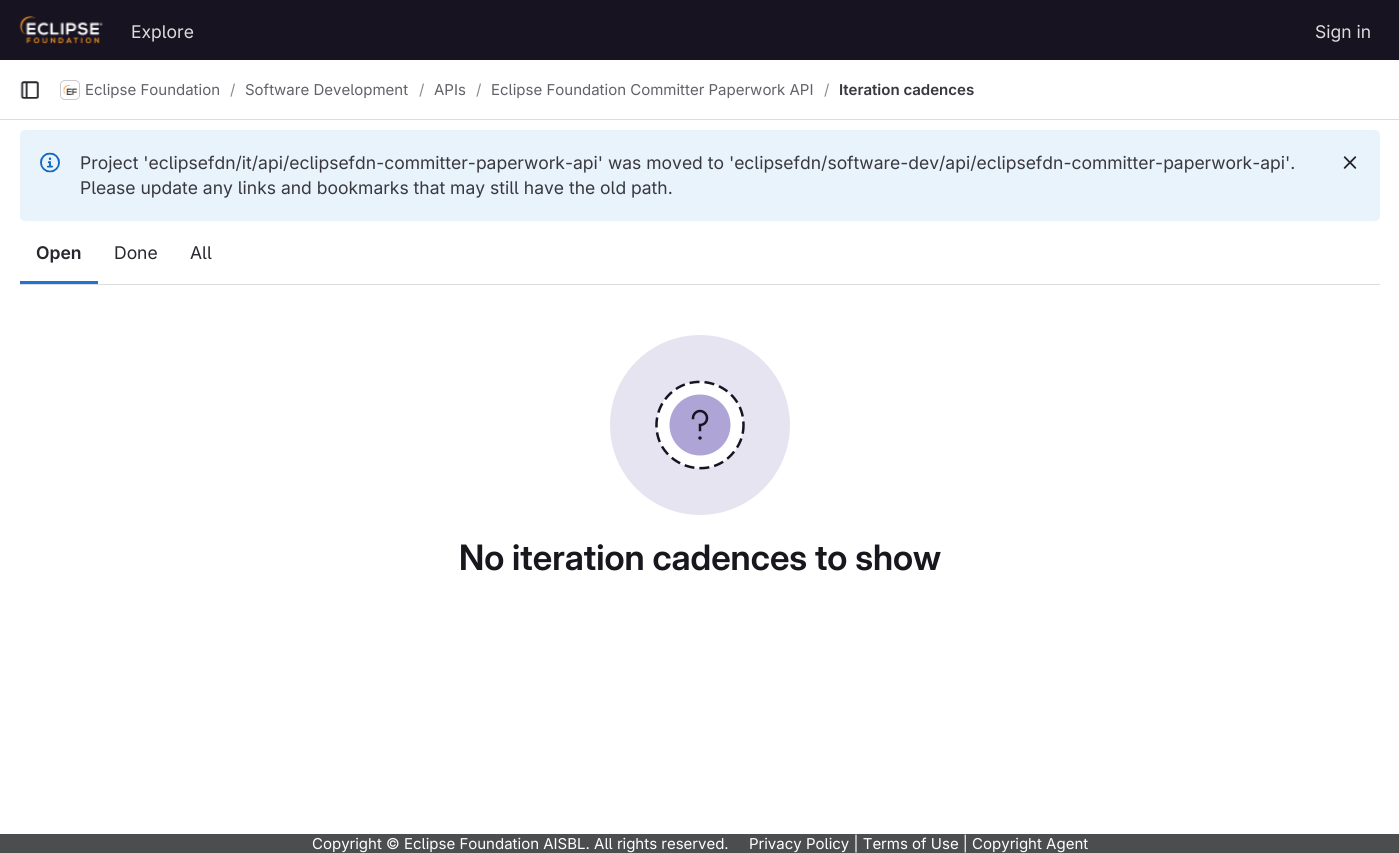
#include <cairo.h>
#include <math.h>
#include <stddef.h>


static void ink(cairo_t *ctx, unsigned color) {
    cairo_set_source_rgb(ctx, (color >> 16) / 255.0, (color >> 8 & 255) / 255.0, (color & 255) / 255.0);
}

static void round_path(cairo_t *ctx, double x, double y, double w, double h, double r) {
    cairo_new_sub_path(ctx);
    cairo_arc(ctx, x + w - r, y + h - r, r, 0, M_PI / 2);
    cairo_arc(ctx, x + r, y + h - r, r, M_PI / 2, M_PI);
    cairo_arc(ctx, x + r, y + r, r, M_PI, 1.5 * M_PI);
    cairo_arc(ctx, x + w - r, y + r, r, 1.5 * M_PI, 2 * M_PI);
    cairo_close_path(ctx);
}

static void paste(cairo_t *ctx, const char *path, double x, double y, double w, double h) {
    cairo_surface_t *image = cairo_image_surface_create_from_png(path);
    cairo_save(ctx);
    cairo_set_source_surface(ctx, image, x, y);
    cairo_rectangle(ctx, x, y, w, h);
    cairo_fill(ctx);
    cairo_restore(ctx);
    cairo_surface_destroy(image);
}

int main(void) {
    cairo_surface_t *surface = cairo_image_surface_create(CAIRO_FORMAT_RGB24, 1399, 853);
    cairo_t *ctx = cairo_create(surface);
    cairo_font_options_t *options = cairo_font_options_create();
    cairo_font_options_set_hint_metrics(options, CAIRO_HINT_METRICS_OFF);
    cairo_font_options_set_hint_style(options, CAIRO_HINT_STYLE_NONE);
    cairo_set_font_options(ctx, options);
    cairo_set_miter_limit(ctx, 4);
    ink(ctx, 0xFFFFFF);
    cairo_paint(ctx);
    ink(ctx, 0x171321);
    cairo_rectangle(ctx, 0, 0, 1399, 60);
    cairo_fill(ctx);
    paste(ctx, "media/1.png", 19, 16, 84, 28);
    cairo_select_font_face(ctx, "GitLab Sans", CAIRO_FONT_SLANT_NORMAL, CAIRO_FONT_WEIGHT_NORMAL);
    cairo_set_font_size(ctx, 17.5);
    ink(ctx, 0xDCDCDE);
    cairo_move_to(ctx, 131, 38);
    cairo_show_text(ctx, "Explore");
    cairo_move_to(ctx, 1315, 38);
    cairo_show_text(ctx, "Sign in");
    cairo_rectangle(ctx, 0, 119, 1399, 1);
    cairo_fill(ctx);
    paste(ctx, "media/2.png", 20, 81, 19, 18);
    round_path(ctx, 60.5, 80.5, 19, 19, 4.5);
    cairo_set_line_width(ctx, 1);
    cairo_stroke(ctx);
    paste(ctx, "media/3.png", 61, 82, 18, 16);
    round_path(ctx, 60.5, 80.5, 19, 19, 4.5);
    cairo_set_source_rgba(ctx, 0.02, 0.02, 0.024, 0.08);
    cairo_stroke(ctx);
    cairo_set_font_size(ctx, 15);
    ink(ctx, 0x626168);
    cairo_move_to(ctx, 85, 95);
    cairo_show_text(ctx, "Eclipse Foundation");
    ink(ctx, 0x89888D);
    cairo_move_to(ctx, 230, 95);
    cairo_show_text(ctx, "/");
    ink(ctx, 0x626168);
    cairo_move_to(ctx, 245, 95);
    cairo_show_text(ctx, "Software Development");
    ink(ctx, 0x89888D);
    cairo_move_to(ctx, 419, 95);
    cairo_show_text(ctx, "/");
    ink(ctx, 0x626168);
    cairo_move_to(ctx, 434, 95);
    cairo_show_text(ctx, "APIs");
    ink(ctx, 0x89888D);
    cairo_move_to(ctx, 476, 95);
    cairo_show_text(ctx, "/");
    ink(ctx, 0x626168);
    cairo_move_to(ctx, 491, 95);
    cairo_show_text(ctx, "Eclipse Foundation Committer Paperwork API");
    ink(ctx, 0x89888D);
    cairo_move_to(ctx, 824, 95);
    cairo_show_text(ctx, "/");
    cairo_select_font_face(ctx, "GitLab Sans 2 SemiBold", CAIRO_FONT_SLANT_NORMAL, CAIRO_FONT_WEIGHT_NORMAL);
    ink(ctx, 0x3A383F);
    cairo_move_to(ctx, 839, 95);
    cairo_show_text(ctx, "Iteration cadences");
    ink(ctx, 0xE9F3FC);
    round_path(ctx, 20, 130, 1360, 91, 5);
    cairo_fill(ctx);
    paste(ctx, "media/4.png", 40, 152, 20, 21);
    cairo_select_font_face(ctx, "GitLab Sans", CAIRO_FONT_SLANT_NORMAL, CAIRO_FONT_WEIGHT_NORMAL);
    cairo_set_font_size(ctx, 17.5);
    ink(ctx, 0x3A383F);
    cairo_move_to(ctx, 80, 169);
    cairo_show_text(ctx, "Project 'eclipsefdn/it/api/eclipsefdn-committer-paperwork-api' was moved to 'eclipsefdn/software-dev/api/eclipsefdn-committer-paperwork-api'.");
    cairo_move_to(ctx, 80, 194);
    cairo_show_text(ctx, "Please update any links and bookmarks that may still have the old path.");
    paste(ctx, "media/5.png", 1343, 156, 14, 13);
    ink(ctx, 0xDCDCDE);
    cairo_rectangle(ctx, 20, 284, 1360, 1);
    cairo_fill(ctx);
    cairo_select_font_face(ctx, "GitLab Sans 2 SemiBold", CAIRO_FONT_SLANT_NORMAL, CAIRO_FONT_WEIGHT_NORMAL);
    ink(ctx, 0x28272D);
    cairo_move_to(ctx, 36, 259);
    cairo_show_text(ctx, "Open");
    ink(ctx, 0x1F75CB);
    cairo_rectangle(ctx, 20, 281, 78, 3);
    cairo_fill(ctx);
    cairo_select_font_face(ctx, "GitLab Sans", CAIRO_FONT_SLANT_NORMAL, CAIRO_FONT_WEIGHT_NORMAL);
    ink(ctx, 0x28272D);
    cairo_move_to(ctx, 114, 259);
    cairo_show_text(ctx, "Done");
    cairo_move_to(ctx, 190, 259);
    cairo_show_text(ctx, "All");
    ink(ctx, 0xE7E4F2);
    cairo_new_path(ctx);
    cairo_arc(ctx, 700, 425, 90, 0, 2 * M_PI);
    cairo_fill(ctx);
    ink(ctx, 0xFFFFFF);
    cairo_arc(ctx, 700, 425, 43.5, 0, 2 * M_PI);
    cairo_fill(ctx);
    ink(ctx, 0xAEA5D6);
    cairo_arc(ctx, 700, 425, 30.5, 0, 2 * M_PI);
    cairo_fill(ctx);
    cairo_new_path(ctx);
    cairo_move_to(ctx, 700, 430);
    cairo_line_to(ctx, 700, 425);
    cairo_curve_to(ctx, 704, 425, 707, 422, 707, 418);
    cairo_curve_to(ctx, 707, 414.5, 704, 411, 700, 411);
    cairo_curve_to(ctx, 696, 411, 693, 414.5, 693, 418);
    ink(ctx, 0x171321);
    cairo_set_line_width(ctx, 2.5);
    cairo_set_line_cap(ctx, CAIRO_LINE_CAP_SQUARE);
    cairo_stroke(ctx);
    cairo_arc(ctx, 700, 438, 0.9, 0, 2 * M_PI);
    cairo_set_line_width(ctx, 1.7);
    cairo_set_line_cap(ctx, CAIRO_LINE_CAP_BUTT);
    cairo_stroke(ctx);
    cairo_new_path(ctx);
    cairo_move_to(ctx, 743.5, 425);
    cairo_curve_to(ctx, 743.5, 433.5, 741, 442, 736, 449);
    cairo_curve_to(ctx, 711.5, 485.5, 654.5, 466, 656.5, 423);
    cairo_curve_to(ctx, 657, 414.5, 660, 406, 665, 399.5);
    cairo_curve_to(ctx, 690, 366, 743.5, 383.5, 743.5, 425);
    cairo_close_path(ctx);
    cairo_set_line_width(ctx, 2.5);
    cairo_set_line_cap(ctx, CAIRO_LINE_CAP_SQUARE);
    cairo_set_dash(ctx, (double[]){7.5, 7.5}, 2, 0);
    cairo_stroke(ctx);
    cairo_select_font_face(ctx, "GitLab Sans SemiBold", CAIRO_FONT_SLANT_NORMAL, CAIRO_FONT_WEIGHT_NORMAL);
    cairo_set_font_size(ctx, 35);
    ink(ctx, 0x18171D);
    cairo_move_to(ctx, 459, 570);
    cairo_show_text(ctx, "No iteration cadences to show");
    ink(ctx, 0x4C4D4E);
    cairo_rectangle(ctx, 0, 834, 1399, 19);
    cairo_fill(ctx);
    cairo_select_font_face(ctx, "GitLab Sans", CAIRO_FONT_SLANT_NORMAL, CAIRO_FONT_WEIGHT_NORMAL);
    cairo_set_font_size(ctx, 15);
    ink(ctx, 0xFFFFFF);
    cairo_move_to(ctx, 312, 849);
    cairo_show_text(ctx, "Copyright © Eclipse Foundation AISBL. All rights reserved.");
    cairo_move_to(ctx, 749, 849);
    cairo_show_text(ctx, "Privacy Policy | Terms of Use | Copyright Agent");
    cairo_surface_write_to_png(surface, "image.png");
    cairo_font_options_destroy(options);
    cairo_destroy(ctx);
    cairo_surface_destroy(surface);
    return 0;
}
